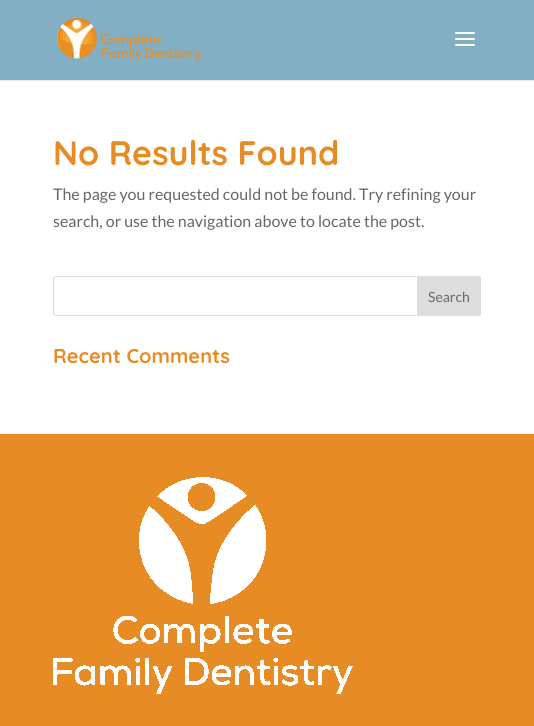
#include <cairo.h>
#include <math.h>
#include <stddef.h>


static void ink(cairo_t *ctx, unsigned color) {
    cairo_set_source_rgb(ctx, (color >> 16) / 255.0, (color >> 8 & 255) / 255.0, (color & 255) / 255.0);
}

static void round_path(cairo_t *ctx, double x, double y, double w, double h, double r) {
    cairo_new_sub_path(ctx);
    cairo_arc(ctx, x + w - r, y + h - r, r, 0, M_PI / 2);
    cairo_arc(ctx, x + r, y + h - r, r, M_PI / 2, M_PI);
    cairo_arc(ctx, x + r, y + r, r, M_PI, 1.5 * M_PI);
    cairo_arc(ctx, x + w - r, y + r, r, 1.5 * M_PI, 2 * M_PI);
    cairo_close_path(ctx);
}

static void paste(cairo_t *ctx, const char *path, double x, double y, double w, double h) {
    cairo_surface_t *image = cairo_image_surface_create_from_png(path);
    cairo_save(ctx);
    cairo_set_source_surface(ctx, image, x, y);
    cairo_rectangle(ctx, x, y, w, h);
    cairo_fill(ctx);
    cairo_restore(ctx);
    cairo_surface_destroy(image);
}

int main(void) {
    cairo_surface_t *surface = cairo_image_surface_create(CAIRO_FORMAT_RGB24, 534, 726);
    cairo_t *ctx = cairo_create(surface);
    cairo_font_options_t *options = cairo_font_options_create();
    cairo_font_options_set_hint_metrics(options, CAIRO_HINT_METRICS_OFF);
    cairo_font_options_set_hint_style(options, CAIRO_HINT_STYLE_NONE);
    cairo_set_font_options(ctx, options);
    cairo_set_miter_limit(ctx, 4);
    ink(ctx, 0xFFFFFF);
    cairo_paint(ctx);
    ink(ctx, 0xE6E6E6);
    cairo_rectangle(ctx, 0, 80, 534, 1);
    cairo_fill(ctx);
    ink(ctx, 0x82AFC4);
    cairo_rectangle(ctx, 0, 0, 534, 80);
    cairo_fill(ctx);
    paste(ctx, "media/1.png", 57, 18, 144, 44);
    paste(ctx, "media/2.png", 455, 32, 20, 14);
    cairo_select_font_face(ctx, "Quicksand Light", CAIRO_FONT_SLANT_NORMAL, CAIRO_FONT_WEIGHT_NORMAL);
    cairo_set_font_size(ctx, 34);
    ink(ctx, 0xE78B25);
    cairo_move_to(ctx, 53, 165);
    cairo_show_text(ctx, "No Results Found");
    cairo_select_font_face(ctx, "Lato", CAIRO_FONT_SLANT_NORMAL, CAIRO_FONT_WEIGHT_NORMAL);
    cairo_set_font_size(ctx, 16);
    ink(ctx, 0x666666);
    cairo_move_to(ctx, 53, 200);
    cairo_show_text(ctx, "The page you requested could not be found. Try refining your");
    cairo_move_to(ctx, 53, 227);
    cairo_show_text(ctx, "search, or use the navigation above to locate the post.");
    round_path(ctx, 53.5, 276.5, 427, 39, 2.5);
    ink(ctx, 0xDDDDDD);
    cairo_set_line_width(ctx, 1);
    cairo_stroke(ctx);
    cairo_new_path(ctx);
    cairo_move_to(ctx, 417.5, 276.5);
    cairo_line_to(ctx, 478, 276.5);
    cairo_curve_to(ctx, 479.5, 276.5, 480.5, 277.5, 480.5, 279);
    cairo_line_to(ctx, 480.5, 313);
    cairo_curve_to(ctx, 480.5, 314.5, 479.5, 315.5, 478, 315.5);
    cairo_line_to(ctx, 417.5, 315.5);
    cairo_close_path(ctx);
    cairo_fill_preserve(ctx);
    cairo_stroke(ctx);
    cairo_set_font_size(ctx, 14);
    ink(ctx, 0x666666);
    cairo_move_to(ctx, 428, 302);
    cairo_show_text(ctx, "Search");
    cairo_select_font_face(ctx, "Quicksand Light", CAIRO_FONT_SLANT_NORMAL, CAIRO_FONT_WEIGHT_NORMAL);
    cairo_set_font_size(ctx, 20);
    ink(ctx, 0xE78B25);
    cairo_move_to(ctx, 53, 363);
    cairo_show_text(ctx, "Recent Comments");
    cairo_rectangle(ctx, 0, 434, 534, 292);
    cairo_fill(ctx);
    paste(ctx, "media/3.png", 53, 477, 300, 217);
    cairo_surface_write_to_png(surface, "image.png");
    cairo_font_options_destroy(options);
    cairo_destroy(ctx);
    cairo_surface_destroy(surface);
    return 0;
}
